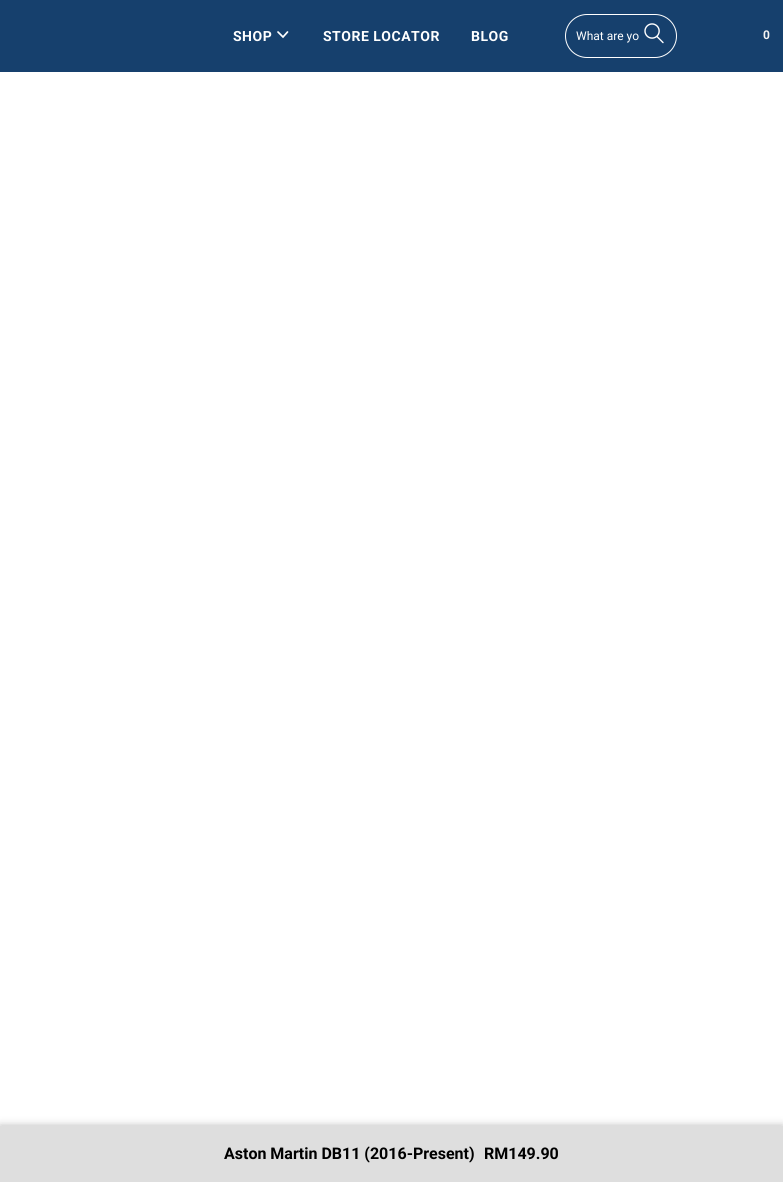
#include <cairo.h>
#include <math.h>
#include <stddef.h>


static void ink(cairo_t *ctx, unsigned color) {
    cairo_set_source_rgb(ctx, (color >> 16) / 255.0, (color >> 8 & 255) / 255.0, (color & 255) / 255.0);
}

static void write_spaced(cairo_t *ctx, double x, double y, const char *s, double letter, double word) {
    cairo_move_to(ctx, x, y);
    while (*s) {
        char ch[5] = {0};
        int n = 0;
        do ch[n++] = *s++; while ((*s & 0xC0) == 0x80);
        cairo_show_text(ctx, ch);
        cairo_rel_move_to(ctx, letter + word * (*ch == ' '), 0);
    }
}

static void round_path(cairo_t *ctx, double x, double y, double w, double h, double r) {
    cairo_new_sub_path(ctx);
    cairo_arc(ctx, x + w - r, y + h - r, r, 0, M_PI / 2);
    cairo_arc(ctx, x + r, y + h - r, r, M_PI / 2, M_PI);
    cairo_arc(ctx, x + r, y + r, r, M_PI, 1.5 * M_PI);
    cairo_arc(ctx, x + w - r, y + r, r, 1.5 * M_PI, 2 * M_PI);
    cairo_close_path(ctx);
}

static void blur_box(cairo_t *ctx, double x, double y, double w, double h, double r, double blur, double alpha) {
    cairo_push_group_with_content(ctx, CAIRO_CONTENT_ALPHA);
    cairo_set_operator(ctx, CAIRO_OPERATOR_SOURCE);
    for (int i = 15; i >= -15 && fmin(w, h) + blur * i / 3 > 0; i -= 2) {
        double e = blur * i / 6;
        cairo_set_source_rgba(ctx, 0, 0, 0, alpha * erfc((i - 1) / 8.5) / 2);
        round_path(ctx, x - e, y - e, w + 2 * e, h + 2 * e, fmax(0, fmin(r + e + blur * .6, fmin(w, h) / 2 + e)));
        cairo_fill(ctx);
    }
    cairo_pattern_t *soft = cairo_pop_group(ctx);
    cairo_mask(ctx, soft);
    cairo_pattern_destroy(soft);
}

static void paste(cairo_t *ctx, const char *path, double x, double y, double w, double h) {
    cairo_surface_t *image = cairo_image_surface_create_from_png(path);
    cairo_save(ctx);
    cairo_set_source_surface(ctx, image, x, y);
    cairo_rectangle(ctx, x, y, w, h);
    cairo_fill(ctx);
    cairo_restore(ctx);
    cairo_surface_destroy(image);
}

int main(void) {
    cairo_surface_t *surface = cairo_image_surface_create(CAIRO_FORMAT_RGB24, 783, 1182);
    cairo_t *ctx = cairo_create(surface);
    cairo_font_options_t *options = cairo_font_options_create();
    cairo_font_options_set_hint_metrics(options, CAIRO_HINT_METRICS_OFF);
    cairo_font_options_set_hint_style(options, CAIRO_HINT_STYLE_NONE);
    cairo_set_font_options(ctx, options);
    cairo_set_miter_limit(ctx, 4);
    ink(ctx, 0xFFFFFF);
    cairo_paint(ctx);
    ink(ctx, 0x16406D);
    cairo_rectangle(ctx, 0, 0, 783, 72);
    cairo_fill(ctx);
    cairo_select_font_face(ctx, "Roboto", CAIRO_FONT_SLANT_NORMAL, CAIRO_FONT_WEIGHT_BOLD);
    cairo_set_font_size(ctx, 14);
    ink(ctx, 0xFFFFFF);
    write_spaced(ctx, 233, 41, "SHOP", 0.5, 0);
    cairo_new_path(ctx);
    cairo_move_to(ctx, 287.5, 32);
    cairo_line_to(ctx, 283, 37);
    cairo_line_to(ctx, 278, 32);
    cairo_set_line_width(ctx, 1.7);
    cairo_set_line_cap(ctx, CAIRO_LINE_CAP_ROUND);
    cairo_stroke(ctx);
    write_spaced(ctx, 323, 41, "STORE LOCATOR", 0.5, 0);
    write_spaced(ctx, 471, 41, "BLOG", 0.5, 0);
    round_path(ctx, 565.5, 14.5, 111, 43, 21.5);
    cairo_set_line_width(ctx, 1);
    cairo_set_line_cap(ctx, CAIRO_LINE_CAP_BUTT);
    cairo_stroke(ctx);
    cairo_select_font_face(ctx, "Roboto", CAIRO_FONT_SLANT_NORMAL, CAIRO_FONT_WEIGHT_NORMAL);
    cairo_set_font_size(ctx, 12);
    cairo_move_to(ctx, 576, 40);
    cairo_show_text(ctx, "What are yo");
    paste(ctx, "media/1.png", 644, 23, 20, 21);
    cairo_select_font_face(ctx, "Roboto", CAIRO_FONT_SLANT_NORMAL, CAIRO_FONT_WEIGHT_BOLD);
    ink(ctx, 0xF4F4F4);
    write_spaced(ctx, 763, 39, "0", 1, 0);
    ink(ctx, 0x272727);
    blur_box(ctx, 0, 1128, 783, 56, 0, 5, 0.5);
    ink(ctx, 0xDEDEDE);
    cairo_rectangle(ctx, 0, 1126, 783, 56);
    cairo_fill(ctx);
    cairo_set_font_size(ctx, 16);
    ink(ctx, 0x000000);
    cairo_move_to(ctx, 224, 1159);
    cairo_show_text(ctx, "Aston Martin DB11 (2016-Present)");
    cairo_move_to(ctx, 484, 1159);
    cairo_show_text(ctx, "RM149.90");
    cairo_surface_write_to_png(surface, "image.png");
    cairo_font_options_destroy(options);
    cairo_destroy(ctx);
    cairo_surface_destroy(surface);
    return 0;
}
